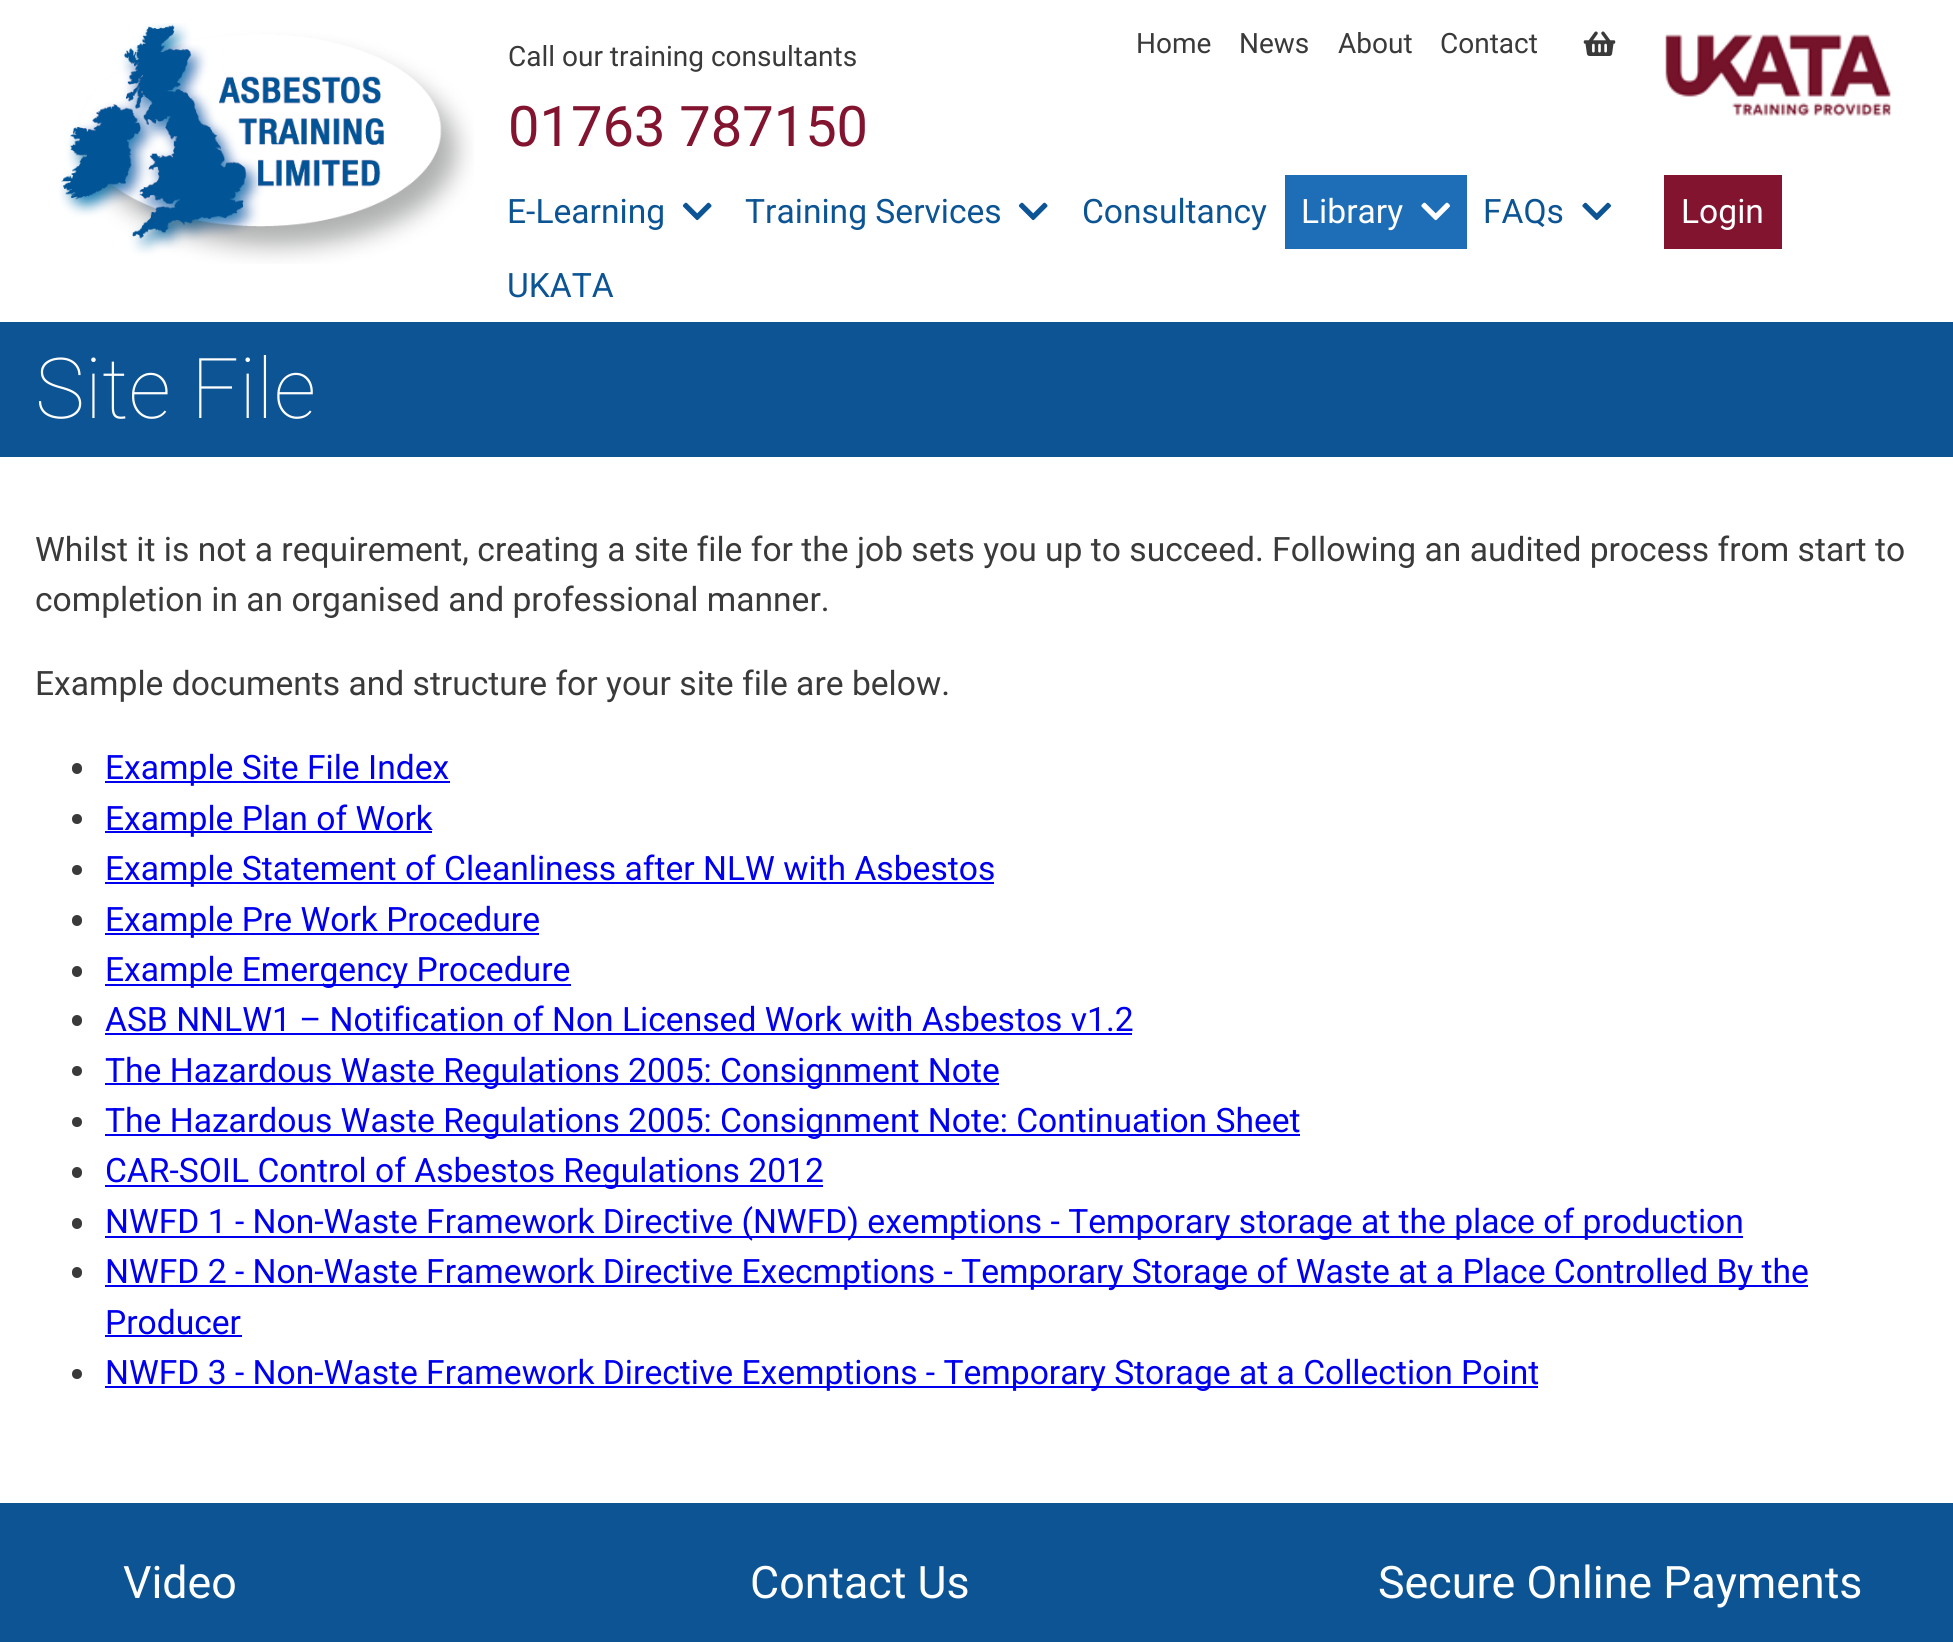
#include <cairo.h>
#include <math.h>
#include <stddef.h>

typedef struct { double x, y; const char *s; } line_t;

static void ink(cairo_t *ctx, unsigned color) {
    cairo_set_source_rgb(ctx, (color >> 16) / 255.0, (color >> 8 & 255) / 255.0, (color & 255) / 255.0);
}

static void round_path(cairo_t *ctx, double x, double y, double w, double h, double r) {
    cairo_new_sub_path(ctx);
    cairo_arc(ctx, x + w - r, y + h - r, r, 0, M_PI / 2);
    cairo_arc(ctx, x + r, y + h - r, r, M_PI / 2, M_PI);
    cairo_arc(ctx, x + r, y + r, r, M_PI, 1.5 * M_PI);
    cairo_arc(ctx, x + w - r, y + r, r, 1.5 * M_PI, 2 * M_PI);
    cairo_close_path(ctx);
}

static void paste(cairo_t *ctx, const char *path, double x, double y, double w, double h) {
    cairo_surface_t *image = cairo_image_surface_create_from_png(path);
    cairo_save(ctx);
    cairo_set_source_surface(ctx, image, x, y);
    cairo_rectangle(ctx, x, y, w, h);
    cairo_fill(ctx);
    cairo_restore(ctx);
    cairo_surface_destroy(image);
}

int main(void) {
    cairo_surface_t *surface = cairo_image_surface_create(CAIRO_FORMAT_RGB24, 1953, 1642);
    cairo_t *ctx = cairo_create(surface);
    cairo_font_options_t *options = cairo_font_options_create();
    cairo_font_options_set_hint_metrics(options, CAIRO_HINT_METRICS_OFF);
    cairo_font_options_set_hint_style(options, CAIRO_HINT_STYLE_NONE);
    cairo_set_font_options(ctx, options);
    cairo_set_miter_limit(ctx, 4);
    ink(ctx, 0xFFFFFF);
    cairo_paint(ctx);
    paste(ctx, "media/1.png", 59, 23, 415, 241);
    cairo_select_font_face(ctx, "Roboto", CAIRO_FONT_SLANT_NORMAL, CAIRO_FONT_WEIGHT_NORMAL);
    cairo_set_font_size(ctx, 28);
    ink(ctx, 0x3A3A3A);
    cairo_move_to(ctx, 508, 66);
    cairo_show_text(ctx, "Call our training consultants");
    cairo_set_font_size(ctx, 56);
    ink(ctx, 0x831430);
    cairo_move_to(ctx, 508, 146);
    cairo_show_text(ctx, "01763 787150");
    cairo_set_font_size(ctx, 28);
    ink(ctx, 0x3A3A3A);
    {
        static const line_t items[] = {
            {1136, 53, "Home"},
            {1239, 53, "News"},
            {1338, 53, "About"},
            {1440, 53, "Contact"},
        };
        for (size_t i = 0; i < sizeof items / sizeof *items; i++) {
            cairo_move_to(ctx, items[i].x, items[i].y);
            cairo_show_text(ctx, items[i].s);
        }
    }
    paste(ctx, "media/2.png", 1583, 31, 33, 25);
    cairo_set_font_size(ctx, 33.6);
    ink(ctx, 0x0C5494);
    cairo_move_to(ctx, 507, 223);
    cairo_show_text(ctx, "E-Learning");
    paste(ctx, "media/3.png", 682, 202, 30, 19);
    cairo_move_to(ctx, 745, 223);
    cairo_show_text(ctx, "Training Services");
    paste(ctx, "media/3.png", 1018, 202, 30, 19);
    cairo_move_to(ctx, 1082, 223);
    cairo_show_text(ctx, "Consultancy");
    ink(ctx, 0x1D6EB7);
    cairo_rectangle(ctx, 1285, 175, 182, 74);
    cairo_fill(ctx);
    ink(ctx, 0xFFFFFF);
    cairo_move_to(ctx, 1301, 223);
    cairo_show_text(ctx, "Library");
    paste(ctx, "media/4.png", 1421, 202, 29, 19);
    ink(ctx, 0x0C5494);
    cairo_move_to(ctx, 1483, 223);
    cairo_show_text(ctx, "FAQs");
    paste(ctx, "media/5.png", 1582, 202, 29, 19);
    cairo_move_to(ctx, 507, 297);
    cairo_show_text(ctx, "UKATA");
    paste(ctx, "media/6.png", 1665, 34, 226, 82);
    ink(ctx, 0x831430);
    cairo_rectangle(ctx, 1664, 175, 118, 74);
    cairo_fill(ctx);
    ink(ctx, 0xFFFFFF);
    cairo_move_to(ctx, 1681, 223);
    cairo_show_text(ctx, "Login");
    ink(ctx, 0x0C5494);
    cairo_rectangle(ctx, 0, 322, 1953, 135);
    cairo_fill(ctx);
    cairo_select_font_face(ctx, "Roboto Thin", CAIRO_FONT_SLANT_NORMAL, CAIRO_FONT_WEIGHT_NORMAL);
    cairo_set_font_size(ctx, 84);
    ink(ctx, 0xFFFFFF);
    cairo_move_to(ctx, 35, 418);
    cairo_show_text(ctx, "Site File");
    cairo_select_font_face(ctx, "Roboto", CAIRO_FONT_SLANT_NORMAL, CAIRO_FONT_WEIGHT_NORMAL);
    cairo_set_font_size(ctx, 33.6);
    ink(ctx, 0x3A3A3A);
    {
        static const line_t items[] = {
            {35, 561, "Whilst it is not a requirement, creating a site file for the job sets you up to succeed. Following an audited process from start to"},
            {35, 611, "completion in an organised and professional manner."},
            {35, 695, "Example documents and structure for your site file are below."},
        };
        for (size_t i = 0; i < sizeof items / sizeof *items; i++) {
            cairo_move_to(ctx, items[i].x, items[i].y);
            cairo_show_text(ctx, items[i].s);
        }
    }
    round_path(ctx, 72, 763, 10, 11, 5);
    cairo_fill(ctx);
    ink(ctx, 0x0000EE);
    cairo_rectangle(ctx, 105, 781, 345, 2);
    cairo_fill(ctx);
    cairo_move_to(ctx, 105, 779);
    cairo_show_text(ctx, "Example Site File Index");
    ink(ctx, 0x3A3A3A);
    cairo_new_path(ctx);
    cairo_arc(ctx, 77, 819, 5, 0, 2 * M_PI);
    cairo_fill(ctx);
    ink(ctx, 0x0000EE);
    cairo_rectangle(ctx, 105, 831, 327, 2);
    cairo_fill(ctx);
    cairo_move_to(ctx, 105, 830);
    cairo_show_text(ctx, "Example Plan of Work");
    ink(ctx, 0x3A3A3A);
    cairo_new_path(ctx);
    cairo_arc(ctx, 77, 870, 5, 0, 2 * M_PI);
    cairo_fill(ctx);
    ink(ctx, 0x0000EE);
    cairo_rectangle(ctx, 105, 882, 889, 2);
    cairo_fill(ctx);
    cairo_move_to(ctx, 105, 880);
    cairo_show_text(ctx, "Example Statement of Cleanliness after NLW with Asbestos");
    ink(ctx, 0x3A3A3A);
    round_path(ctx, 72, 915, 10, 11, 5);
    cairo_fill(ctx);
    ink(ctx, 0x0000EE);
    cairo_rectangle(ctx, 105, 933, 434, 2);
    cairo_fill(ctx);
    cairo_move_to(ctx, 105, 931);
    cairo_show_text(ctx, "Example Pre Work Procedure");
    ink(ctx, 0x3A3A3A);
    round_path(ctx, 72, 966, 10, 11, 5);
    cairo_fill(ctx);
    ink(ctx, 0x0000EE);
    cairo_rectangle(ctx, 105, 984, 466, 2);
    cairo_fill(ctx);
    cairo_move_to(ctx, 105, 981);
    cairo_show_text(ctx, "Example Emergency Procedure");
    ink(ctx, 0x3A3A3A);
    round_path(ctx, 72, 1015, 10, 11, 5);
    cairo_fill(ctx);
    ink(ctx, 0x0000EE);
    cairo_move_to(ctx, 105, 1031);
    cairo_show_text(ctx, "ASB NNLW1 – Notification of Non Licensed Work with Asbestos v1.2");
    cairo_rectangle(ctx, 105, 1033, 1027, 2);
    cairo_fill(ctx);
    ink(ctx, 0x3A3A3A);
    cairo_arc(ctx, 77, 1071, 5, 0, 2 * M_PI);
    cairo_fill(ctx);
    ink(ctx, 0x0000EE);
    cairo_rectangle(ctx, 105, 1083, 894, 2);
    cairo_fill(ctx);
    cairo_move_to(ctx, 105, 1082);
    cairo_show_text(ctx, "The Hazardous Waste Regulations 2005: Consignment Note");
    ink(ctx, 0x3A3A3A);
    cairo_new_path(ctx);
    cairo_arc(ctx, 77, 1122, 5, 0, 2 * M_PI);
    cairo_fill(ctx);
    ink(ctx, 0x0000EE);
    cairo_rectangle(ctx, 105, 1134, 1195, 2);
    cairo_fill(ctx);
    cairo_move_to(ctx, 105, 1132);
    cairo_show_text(ctx, "The Hazardous Waste Regulations 2005: Consignment Note: Continuation Sheet");
    ink(ctx, 0x3A3A3A);
    round_path(ctx, 72, 1167, 10, 11, 5);
    cairo_fill(ctx);
    ink(ctx, 0x0000EE);
    cairo_rectangle(ctx, 105, 1185, 718, 2);
    cairo_fill(ctx);
    cairo_move_to(ctx, 105, 1182);
    cairo_show_text(ctx, "CAR-SOIL Control of Asbestos Regulations 2012");
    ink(ctx, 0x3A3A3A);
    round_path(ctx, 72, 1218, 10, 11, 5);
    cairo_fill(ctx);
    ink(ctx, 0x0000EE);
    cairo_rectangle(ctx, 105, 1236, 1638, 2);
    cairo_fill(ctx);
    cairo_move_to(ctx, 105, 1233);
    cairo_show_text(ctx, "NWFD 1 - Non-Waste Framework Directive (NWFD) exemptions - Temporary storage at the place of production");
    ink(ctx, 0x3A3A3A);
    round_path(ctx, 72, 1267, 10, 11, 5);
    cairo_fill(ctx);
    ink(ctx, 0x0000EE);
    cairo_rectangle(ctx, 105, 1285, 1703, 2);
    cairo_fill(ctx);
    cairo_move_to(ctx, 105, 1283);
    cairo_show_text(ctx, "NWFD 2 - Non-Waste Framework Directive Execmptions - Temporary Storage of Waste at a Place Controlled By the");
    cairo_move_to(ctx, 105, 1334);
    cairo_show_text(ctx, "Producer");
    cairo_rectangle(ctx, 105, 1335, 137, 2);
    cairo_fill(ctx);
    ink(ctx, 0x3A3A3A);
    cairo_arc(ctx, 77, 1374, 5, 0, 2 * M_PI);
    cairo_fill(ctx);
    ink(ctx, 0x0000EE);
    cairo_rectangle(ctx, 105, 1386, 1433, 2);
    cairo_fill(ctx);
    cairo_move_to(ctx, 105, 1384);
    cairo_show_text(ctx, "NWFD 3 - Non-Waste Framework Directive Exemptions - Temporary Storage at a Collection Point");
    ink(ctx, 0x0C5494);
    cairo_rectangle(ctx, 0, 1503, 1953, 139);
    cairo_fill(ctx);
    cairo_set_font_size(ctx, 44.75);
    ink(ctx, 0xFFFFFF);
    {
        static const line_t items[] = {
            {123, 1598, "Video"},
            {750, 1598, "Contact Us"},
            {1378, 1598, "Secure Online Payments"},
        };
        for (size_t i = 0; i < sizeof items / sizeof *items; i++) {
            cairo_move_to(ctx, items[i].x, items[i].y);
            cairo_show_text(ctx, items[i].s);
        }
    }
    cairo_surface_write_to_png(surface, "image.png");
    cairo_font_options_destroy(options);
    cairo_destroy(ctx);
    cairo_surface_destroy(surface);
    return 0;
}
